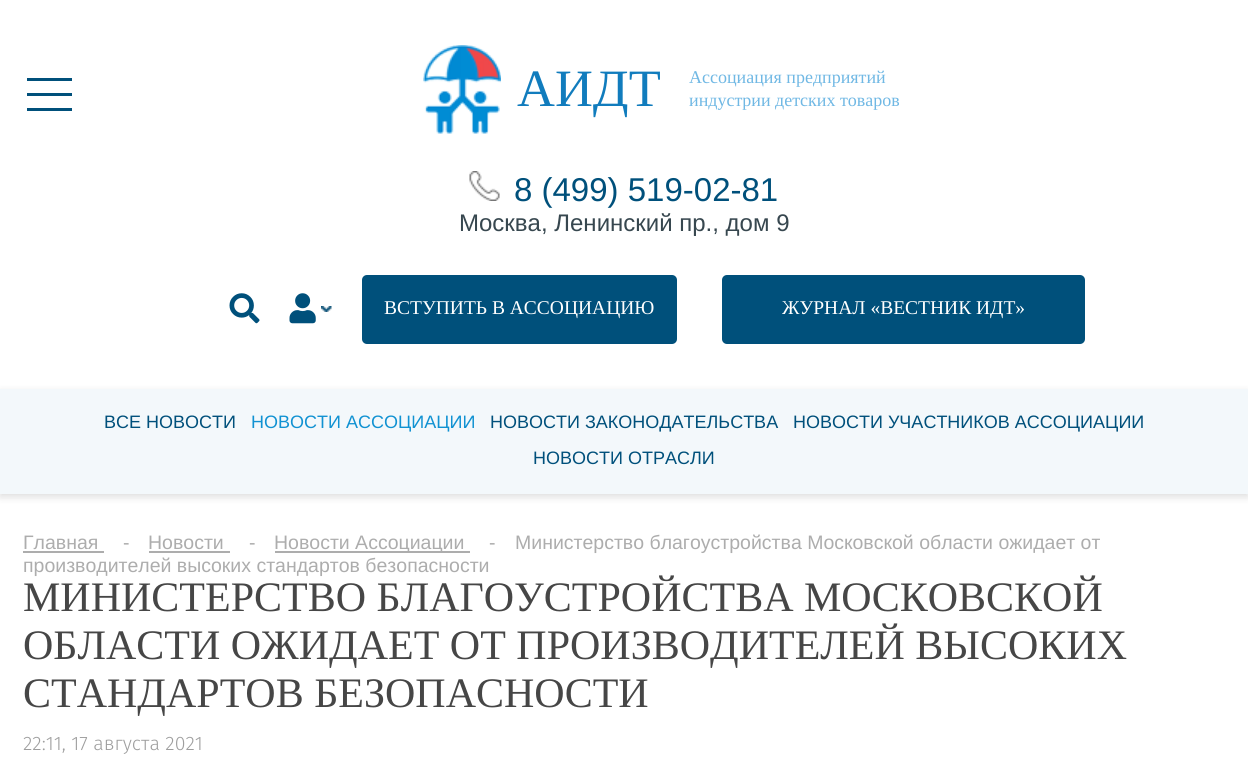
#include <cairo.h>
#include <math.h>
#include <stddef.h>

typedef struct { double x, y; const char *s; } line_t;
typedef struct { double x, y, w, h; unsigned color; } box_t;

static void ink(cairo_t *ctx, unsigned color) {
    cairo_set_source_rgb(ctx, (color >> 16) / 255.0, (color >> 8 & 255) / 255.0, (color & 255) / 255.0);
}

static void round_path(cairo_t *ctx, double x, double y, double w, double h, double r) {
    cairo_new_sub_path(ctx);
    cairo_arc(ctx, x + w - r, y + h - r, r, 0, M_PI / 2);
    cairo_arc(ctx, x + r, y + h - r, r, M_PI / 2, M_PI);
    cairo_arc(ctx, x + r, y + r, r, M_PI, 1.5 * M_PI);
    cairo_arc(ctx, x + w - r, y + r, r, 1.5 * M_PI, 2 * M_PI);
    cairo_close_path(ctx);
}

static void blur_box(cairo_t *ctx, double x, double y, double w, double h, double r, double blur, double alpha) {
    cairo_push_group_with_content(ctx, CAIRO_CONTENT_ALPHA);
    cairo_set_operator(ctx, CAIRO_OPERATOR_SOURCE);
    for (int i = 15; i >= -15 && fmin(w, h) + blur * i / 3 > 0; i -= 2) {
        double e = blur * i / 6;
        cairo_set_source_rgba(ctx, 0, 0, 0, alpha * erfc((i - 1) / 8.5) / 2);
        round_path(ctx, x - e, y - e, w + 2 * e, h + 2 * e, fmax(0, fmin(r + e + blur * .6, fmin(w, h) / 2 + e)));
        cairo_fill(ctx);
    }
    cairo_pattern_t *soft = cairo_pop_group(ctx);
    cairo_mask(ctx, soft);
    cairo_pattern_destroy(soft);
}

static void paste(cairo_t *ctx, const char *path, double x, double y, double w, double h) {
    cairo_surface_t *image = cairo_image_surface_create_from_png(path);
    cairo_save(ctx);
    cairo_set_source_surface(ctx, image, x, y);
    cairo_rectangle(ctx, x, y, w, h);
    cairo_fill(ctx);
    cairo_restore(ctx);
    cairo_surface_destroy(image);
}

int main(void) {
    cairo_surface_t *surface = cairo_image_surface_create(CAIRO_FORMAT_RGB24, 1248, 765);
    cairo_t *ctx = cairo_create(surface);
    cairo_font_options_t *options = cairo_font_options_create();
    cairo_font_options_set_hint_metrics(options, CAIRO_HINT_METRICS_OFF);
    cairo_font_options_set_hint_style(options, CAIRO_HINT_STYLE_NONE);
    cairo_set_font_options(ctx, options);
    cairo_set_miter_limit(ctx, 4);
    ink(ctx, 0xFFFFFF);
    cairo_paint(ctx);
    {
        static const box_t items[] = {
            {27, 93, 45, 3, 0x00507B},
            {27, 78, 45, 3, 0x00507B},
            {27, 108, 45, 3, 0x00507B},
        };
        for (size_t i = 0; i < sizeof items / sizeof *items; i++) {
            ink(ctx, items[i].color);
            cairo_rectangle(ctx, items[i].x, items[i].y, items[i].w, items[i].h);
            cairo_fill(ctx);
        }
    }
    paste(ctx, "media/1.png", 423, 45, 78, 89);
    cairo_select_font_face(ctx, "Liberation Serif", CAIRO_FONT_SLANT_NORMAL, CAIRO_FONT_WEIGHT_NORMAL);
    cairo_set_font_size(ctx, 52.5);
    ink(ctx, 0x117CBD);
    cairo_move_to(ctx, 517, 106);
    cairo_show_text(ctx, "АИДТ");
    cairo_set_font_size(ctx, 18);
    ink(ctx, 0x70B8E4);
    cairo_move_to(ctx, 689, 83);
    cairo_show_text(ctx, "Ассоциация предприятий");
    cairo_move_to(ctx, 689, 106);
    cairo_show_text(ctx, "индустрии детских товаров");
    paste(ctx, "media/2.png", 469, 171, 31, 30);
    cairo_select_font_face(ctx, "Liberation Sans", CAIRO_FONT_SLANT_NORMAL, CAIRO_FONT_WEIGHT_NORMAL);
    cairo_set_font_size(ctx, 33);
    ink(ctx, 0x00507B);
    cairo_move_to(ctx, 514, 201);
    cairo_show_text(ctx, "8 (499) 519-02-81");
    cairo_set_font_size(ctx, 24);
    ink(ctx, 0x37474F);
    cairo_move_to(ctx, 459, 231);
    cairo_show_text(ctx, "Москва, Ленинский пр., дом 9");
    paste(ctx, "media/3.png", 229, 293, 31, 31);
    paste(ctx, "media/4.png", 321, 306, 11, 6);
    paste(ctx, "media/5.png", 289, 293, 27, 31);
    ink(ctx, 0x00507B);
    round_path(ctx, 362, 275, 315, 69, 5);
    cairo_fill(ctx);
    cairo_select_font_face(ctx, "Liberation Serif", CAIRO_FONT_SLANT_NORMAL, CAIRO_FONT_WEIGHT_NORMAL);
    cairo_set_font_size(ctx, 19.5);
    ink(ctx, 0xFFFFFF);
    cairo_move_to(ctx, 384, 314);
    cairo_show_text(ctx, "ВСТУПИТЬ В АССОЦИАЦИЮ");
    ink(ctx, 0x00507B);
    round_path(ctx, 722, 275, 363, 69, 5);
    cairo_fill(ctx);
    ink(ctx, 0xFFFFFF);
    cairo_move_to(ctx, 782, 314);
    cairo_show_text(ctx, "ЖУРНАЛ «ВЕСТНИК ИДТ»");
    ink(ctx, 0x2A2A2A);
    blur_box(ctx, 0, 392, 1248, 105, 0, 4, 0.16);
    ink(ctx, 0xF3F8FB);
    cairo_rectangle(ctx, 0, 389, 1248, 105);
    cairo_fill(ctx);
    cairo_select_font_face(ctx, "Liberation Sans", CAIRO_FONT_SLANT_NORMAL, CAIRO_FONT_WEIGHT_NORMAL);
    cairo_set_font_size(ctx, 18);
    ink(ctx, 0x00507B);
    cairo_move_to(ctx, 104, 428);
    cairo_show_text(ctx, "ВСЕ НОВОСТИ");
    ink(ctx, 0x1192D2);
    cairo_move_to(ctx, 251, 428);
    cairo_show_text(ctx, "НОВОСТИ АССОЦИАЦИИ");
    ink(ctx, 0x00507B);
    {
        static const line_t items[] = {
            {490, 428, "НОВОСТИ ЗАКОНОДАТЕЛЬСТВА"},
            {793, 428, "НОВОСТИ УЧАСТНИКОВ АССОЦИАЦИИ"},
            {533, 464, "НОВОСТИ ОТРАСЛИ"},
        };
        for (size_t i = 0; i < sizeof items / sizeof *items; i++) {
            cairo_move_to(ctx, items[i].x, items[i].y);
            cairo_show_text(ctx, items[i].s);
        }
    }
    cairo_set_font_size(ctx, 19.5);
    ink(ctx, 0xADADAD);
    cairo_move_to(ctx, 23, 549);
    cairo_show_text(ctx, "Главная");
    cairo_rectangle(ctx, 23, 551, 81, 2);
    cairo_fill(ctx);
    cairo_move_to(ctx, 123, 549);
    cairo_show_text(ctx, "-");
    cairo_move_to(ctx, 148, 549);
    cairo_show_text(ctx, "Новости");
    cairo_rectangle(ctx, 149, 551, 81, 2);
    cairo_fill(ctx);
    cairo_move_to(ctx, 249, 549);
    cairo_show_text(ctx, "-");
    cairo_rectangle(ctx, 275, 551, 195, 2);
    cairo_fill(ctx);
    {
        static const line_t items[] = {
            {274, 549, "Новости Ассоциации"},
            {489, 549, "-"},
            {515, 549, "Министерство благоустройства Московской области ожидает от"},
            {23, 572, "производителей высоких стандартов безопасности"},
        };
        for (size_t i = 0; i < sizeof items / sizeof *items; i++) {
            cairo_move_to(ctx, items[i].x, items[i].y);
            cairo_show_text(ctx, items[i].s);
        }
    }
    cairo_select_font_face(ctx, "Liberation Serif", CAIRO_FONT_SLANT_NORMAL, CAIRO_FONT_WEIGHT_NORMAL);
    cairo_set_font_size(ctx, 42);
    ink(ctx, 0x464646);
    {
        static const line_t items[] = {
            {23, 611, "МИНИСТЕРСТВО БЛАГОУСТРОЙСТВА МОСКОВСКОЙ"},
            {23, 659, "ОБЛАСТИ ОЖИДАЕТ ОТ ПРОИЗВОДИТЕЛЕЙ ВЫСОКИХ"},
            {23, 707, "СТАНДАРТОВ БЕЗОПАСНОСТИ"},
        };
        for (size_t i = 0; i < sizeof items / sizeof *items; i++) {
            cairo_move_to(ctx, items[i].x, items[i].y);
            cairo_show_text(ctx, items[i].s);
        }
    }
    cairo_select_font_face(ctx, "Fira Sans Light", CAIRO_FONT_SLANT_NORMAL, CAIRO_FONT_WEIGHT_NORMAL);
    cairo_set_font_size(ctx, 19.5);
    ink(ctx, 0x9E9E9E);
    cairo_move_to(ctx, 23, 750);
    cairo_show_text(ctx, "22:11, 17 августа 2021");
    cairo_surface_write_to_png(surface, "image.png");
    cairo_font_options_destroy(options);
    cairo_destroy(ctx);
    cairo_surface_destroy(surface);
    return 0;
}
